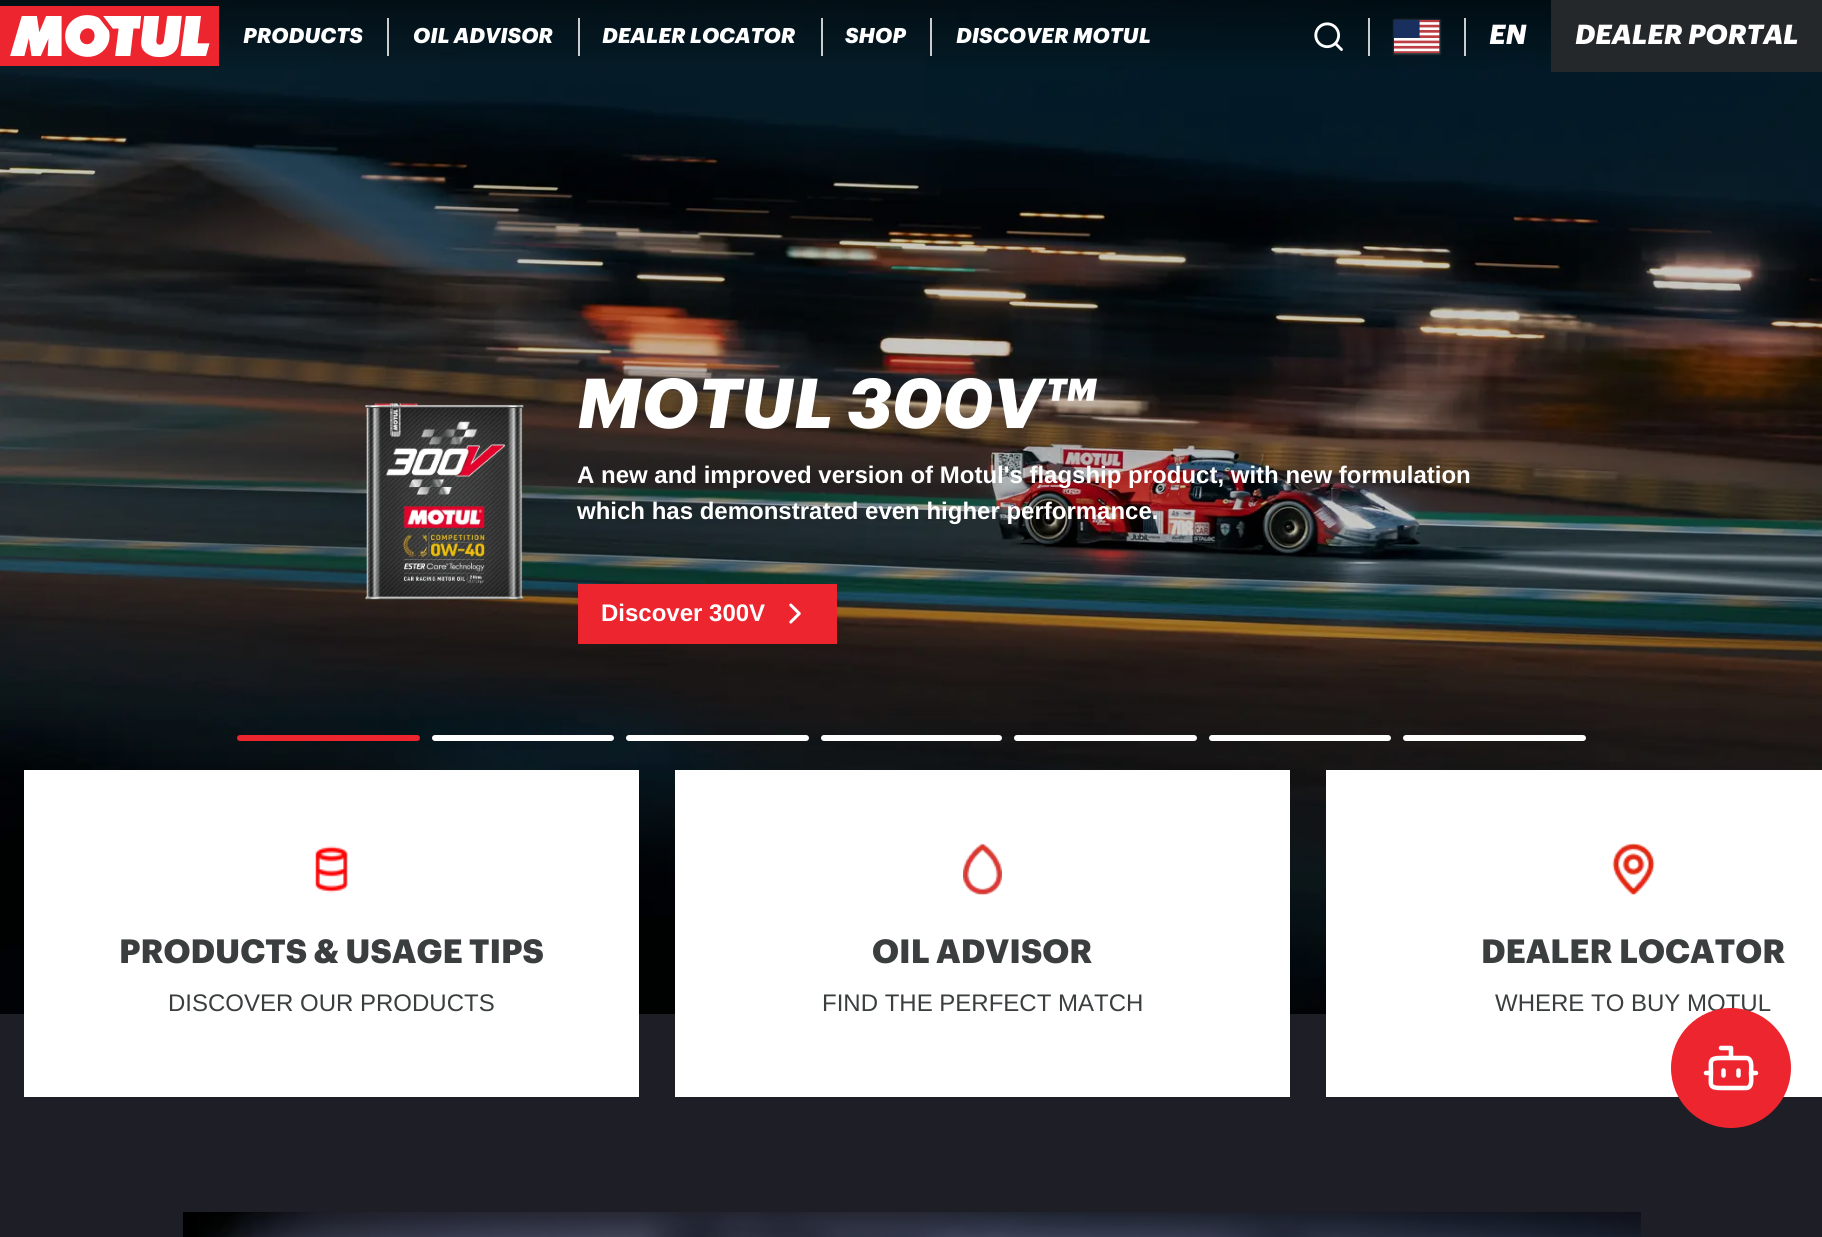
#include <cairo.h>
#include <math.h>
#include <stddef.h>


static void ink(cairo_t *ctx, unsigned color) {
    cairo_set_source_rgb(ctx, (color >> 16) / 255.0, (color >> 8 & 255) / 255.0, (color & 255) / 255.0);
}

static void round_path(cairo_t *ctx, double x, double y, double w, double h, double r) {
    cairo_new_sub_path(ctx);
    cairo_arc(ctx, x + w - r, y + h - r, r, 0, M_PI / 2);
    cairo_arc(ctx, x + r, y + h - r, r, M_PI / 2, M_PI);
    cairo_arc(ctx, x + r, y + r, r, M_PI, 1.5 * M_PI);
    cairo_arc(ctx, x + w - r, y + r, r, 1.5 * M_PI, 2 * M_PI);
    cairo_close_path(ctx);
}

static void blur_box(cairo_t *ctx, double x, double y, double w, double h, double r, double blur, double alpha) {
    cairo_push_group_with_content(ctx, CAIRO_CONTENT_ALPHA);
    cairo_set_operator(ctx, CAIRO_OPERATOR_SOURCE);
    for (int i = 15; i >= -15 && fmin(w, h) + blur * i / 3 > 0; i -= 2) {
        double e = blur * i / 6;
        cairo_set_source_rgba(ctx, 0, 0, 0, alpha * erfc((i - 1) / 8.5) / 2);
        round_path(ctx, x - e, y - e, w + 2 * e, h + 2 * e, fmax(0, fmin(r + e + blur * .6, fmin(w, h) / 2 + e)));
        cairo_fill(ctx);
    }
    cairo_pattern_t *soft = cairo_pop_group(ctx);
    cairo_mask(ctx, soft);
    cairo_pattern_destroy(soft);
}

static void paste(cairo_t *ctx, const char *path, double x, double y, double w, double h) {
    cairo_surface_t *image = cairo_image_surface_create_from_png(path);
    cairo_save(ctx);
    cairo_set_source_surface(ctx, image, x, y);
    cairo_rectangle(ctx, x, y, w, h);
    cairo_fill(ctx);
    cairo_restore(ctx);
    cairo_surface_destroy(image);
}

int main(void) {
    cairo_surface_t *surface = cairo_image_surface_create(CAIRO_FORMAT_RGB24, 1822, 1237);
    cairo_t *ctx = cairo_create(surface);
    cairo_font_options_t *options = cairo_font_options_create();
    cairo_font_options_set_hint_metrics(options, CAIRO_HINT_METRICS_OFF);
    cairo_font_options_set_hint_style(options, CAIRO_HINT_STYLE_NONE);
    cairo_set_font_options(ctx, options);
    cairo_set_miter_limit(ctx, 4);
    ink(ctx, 0x1E1E27);
    cairo_paint(ctx);
    paste(ctx, "media/4.png", 0, 0, 1822, 1014);
    ink(ctx, 0xED252F);
    cairo_rectangle(ctx, 0, 6, 219, 60);
    cairo_fill(ctx);
    paste(ctx, "media/1.png", 10, 15, 200, 43);
    cairo_select_font_face(ctx, "Graphik", CAIRO_FONT_SLANT_ITALIC, CAIRO_FONT_WEIGHT_BOLD);
    cairo_set_font_size(ctx, 21);
    ink(ctx, 0xFFFFFF);
    cairo_move_to(ctx, 243, 43);
    cairo_show_text(ctx, "PRODUCTS");
    ink(ctx, 0xCCCCCC);
    cairo_rectangle(ctx, 387, 18, 2, 38);
    cairo_fill(ctx);
    ink(ctx, 0xFFFFFF);
    cairo_move_to(ctx, 413, 43);
    cairo_show_text(ctx, "OIL ADVISOR");
    ink(ctx, 0xCCCCCC);
    cairo_rectangle(ctx, 578, 18, 2, 38);
    cairo_fill(ctx);
    ink(ctx, 0xFFFFFF);
    cairo_move_to(ctx, 602, 43);
    cairo_show_text(ctx, "DEALER LOCATOR");
    ink(ctx, 0xCCCCCC);
    cairo_rectangle(ctx, 821, 18, 2, 38);
    cairo_fill(ctx);
    ink(ctx, 0xFFFFFF);
    cairo_move_to(ctx, 845, 43);
    cairo_show_text(ctx, "SHOP");
    ink(ctx, 0xCCCCCC);
    cairo_rectangle(ctx, 930, 18, 2, 38);
    cairo_fill(ctx);
    ink(ctx, 0xFFFFFF);
    cairo_move_to(ctx, 956, 43);
    cairo_show_text(ctx, "DISCOVER MOTUL");
    paste(ctx, "media/2.png", 1314, 22, 29, 29);
    ink(ctx, 0xCCCCCC);
    cairo_rectangle(ctx, 1368, 18, 2, 38);
    cairo_fill(ctx);
    ink(ctx, 0x515355);
    blur_box(ctx, 1394, 20, 46, 34, 0, 1, 1);
    paste(ctx, "media/3.png", 1394, 20, 46, 33);
    ink(ctx, 0xCCCCCC);
    cairo_rectangle(ctx, 1464, 18, 2, 38);
    cairo_fill(ctx);
    cairo_set_font_size(ctx, 27);
    ink(ctx, 0xFFFFFF);
    cairo_move_to(ctx, 1489, 44);
    cairo_show_text(ctx, "EN");
    ink(ctx, 0x25282A);
    cairo_rectangle(ctx, 1551, 0, 271, 72);
    cairo_fill(ctx);
    ink(ctx, 0xFFFFFF);
    cairo_move_to(ctx, 1575, 44);
    cairo_show_text(ctx, "DEALER PORTAL");
    paste(ctx, "media/5.png", 365, 403, 159, 197);
    cairo_set_font_size(ctx, 69);
    cairo_move_to(ctx, 577, 428);
    cairo_show_text(ctx, "MOTUL 300V™");
    cairo_select_font_face(ctx, "Liberation Sans", CAIRO_FONT_SLANT_NORMAL, CAIRO_FONT_WEIGHT_BOLD);
    cairo_set_font_size(ctx, 24);
    cairo_move_to(ctx, 577, 483);
    cairo_show_text(ctx, "A new and improved version of Motul's flagship product, with new formulation");
    cairo_move_to(ctx, 577, 519);
    cairo_show_text(ctx, "which has demonstrated even higher performance.");
    ink(ctx, 0xED252F);
    cairo_rectangle(ctx, 578, 584, 259, 60);
    cairo_fill(ctx);
    ink(ctx, 0xFFFFFF);
    cairo_move_to(ctx, 601, 621);
    cairo_show_text(ctx, "Discover 300V");
    paste(ctx, "media/6.png", 789, 603, 12, 21);
    ink(ctx, 0xED252F);
    round_path(ctx, 237, 735, 183, 6, 3);
    cairo_fill(ctx);
    ink(ctx, 0xFFFFFF);
    round_path(ctx, 432, 735, 182, 6, 3);
    cairo_fill(ctx);
    round_path(ctx, 626, 735, 183, 6, 3);
    cairo_fill(ctx);
    round_path(ctx, 821, 735, 181, 6, 3);
    cairo_fill(ctx);
    round_path(ctx, 1014, 735, 183, 6, 3);
    cairo_fill(ctx);
    round_path(ctx, 1209, 735, 182, 6, 3);
    cairo_fill(ctx);
    round_path(ctx, 1403, 735, 183, 6, 3);
    cairo_fill(ctx);
    cairo_rectangle(ctx, 24, 770, 615, 327);
    cairo_fill(ctx);
    paste(ctx, "media/7.png", 315, 846, 33, 47);
    cairo_select_font_face(ctx, "Graphik", CAIRO_FONT_SLANT_NORMAL, CAIRO_FONT_WEIGHT_BOLD);
    cairo_set_font_size(ctx, 33);
    ink(ctx, 0x3B3E3F);
    cairo_move_to(ctx, 119, 963);
    cairo_show_text(ctx, "PRODUCTS & USAGE TIPS");
    cairo_select_font_face(ctx, "Liberation Sans", CAIRO_FONT_SLANT_NORMAL, CAIRO_FONT_WEIGHT_NORMAL);
    cairo_set_font_size(ctx, 24);
    cairo_move_to(ctx, 168, 1011);
    cairo_show_text(ctx, "DISCOVER OUR PRODUCTS");
    ink(ctx, 0xFFFFFF);
    cairo_rectangle(ctx, 675, 770, 615, 327);
    cairo_fill(ctx);
    paste(ctx, "media/8.png", 963, 843, 39, 53);
    cairo_select_font_face(ctx, "Graphik", CAIRO_FONT_SLANT_NORMAL, CAIRO_FONT_WEIGHT_BOLD);
    cairo_set_font_size(ctx, 33);
    ink(ctx, 0x3B3E3F);
    cairo_move_to(ctx, 872, 963);
    cairo_show_text(ctx, "OIL ADVISOR");
    cairo_select_font_face(ctx, "Liberation Sans", CAIRO_FONT_SLANT_NORMAL, CAIRO_FONT_WEIGHT_NORMAL);
    cairo_set_font_size(ctx, 24);
    cairo_move_to(ctx, 822, 1011);
    cairo_show_text(ctx, "FIND THE PERFECT MATCH");
    ink(ctx, 0xFFFFFF);
    cairo_rectangle(ctx, 1326, 770, 496, 327);
    cairo_fill(ctx);
    paste(ctx, "media/9.png", 1612, 843, 43, 52);
    cairo_select_font_face(ctx, "Graphik", CAIRO_FONT_SLANT_NORMAL, CAIRO_FONT_WEIGHT_BOLD);
    cairo_set_font_size(ctx, 33);
    ink(ctx, 0x3B3E3F);
    cairo_move_to(ctx, 1481, 963);
    cairo_show_text(ctx, "DEALER LOCATOR");
    cairo_select_font_face(ctx, "Liberation Sans", CAIRO_FONT_SLANT_NORMAL, CAIRO_FONT_WEIGHT_NORMAL);
    cairo_set_font_size(ctx, 24);
    cairo_move_to(ctx, 1495, 1011);
    cairo_show_text(ctx, "WHERE TO BUY MOTUL");
    ink(ctx, 0x000000);
    cairo_rectangle(ctx, 183, 1212, 15, 25);
    cairo_fill(ctx);
    paste(ctx, "media/10.png", 198, 1212, 1443, 25);
    ink(ctx, 0xED252F);
    cairo_arc(ctx, 1731, 1068, 60, 0, 2 * M_PI);
    cairo_fill(ctx);
    cairo_new_path(ctx);
    cairo_move_to(ctx, 1731, 1058);
    cairo_line_to(ctx, 1731, 1048);
    cairo_line_to(ctx, 1721, 1048);
    cairo_move_to(ctx, 1746, 1058);
    cairo_line_to(ctx, 1721, 1058);
    cairo_curve_to(ctx, 1708.5, 1058, 1711, 1061, 1711, 1073);
    cairo_curve_to(ctx, 1711, 1085, 1708.5, 1088, 1721, 1088);
    cairo_line_to(ctx, 1746, 1088);
    cairo_curve_to(ctx, 1753, 1088, 1751, 1077.5, 1751, 1073);
    cairo_curve_to(ctx, 1751, 1069, 1753, 1058, 1746, 1058);
    cairo_close_path(ctx);
    cairo_move_to(ctx, 1706, 1073);
    cairo_line_to(ctx, 1711, 1073);
    cairo_move_to(ctx, 1751, 1073);
    cairo_line_to(ctx, 1756, 1073);
    cairo_move_to(ctx, 1738.5, 1070.5);
    cairo_line_to(ctx, 1738.5, 1075.5);
    cairo_move_to(ctx, 1723.5, 1070.5);
    cairo_line_to(ctx, 1723.5, 1075.5);
    ink(ctx, 0xFFFFFF);
    cairo_set_line_width(ctx, 4.5);
    cairo_set_line_cap(ctx, CAIRO_LINE_CAP_ROUND);
    cairo_set_line_join(ctx, CAIRO_LINE_JOIN_ROUND);
    cairo_stroke(ctx);
    cairo_surface_write_to_png(surface, "image.png");
    cairo_font_options_destroy(options);
    cairo_destroy(ctx);
    cairo_surface_destroy(surface);
    return 0;
}
